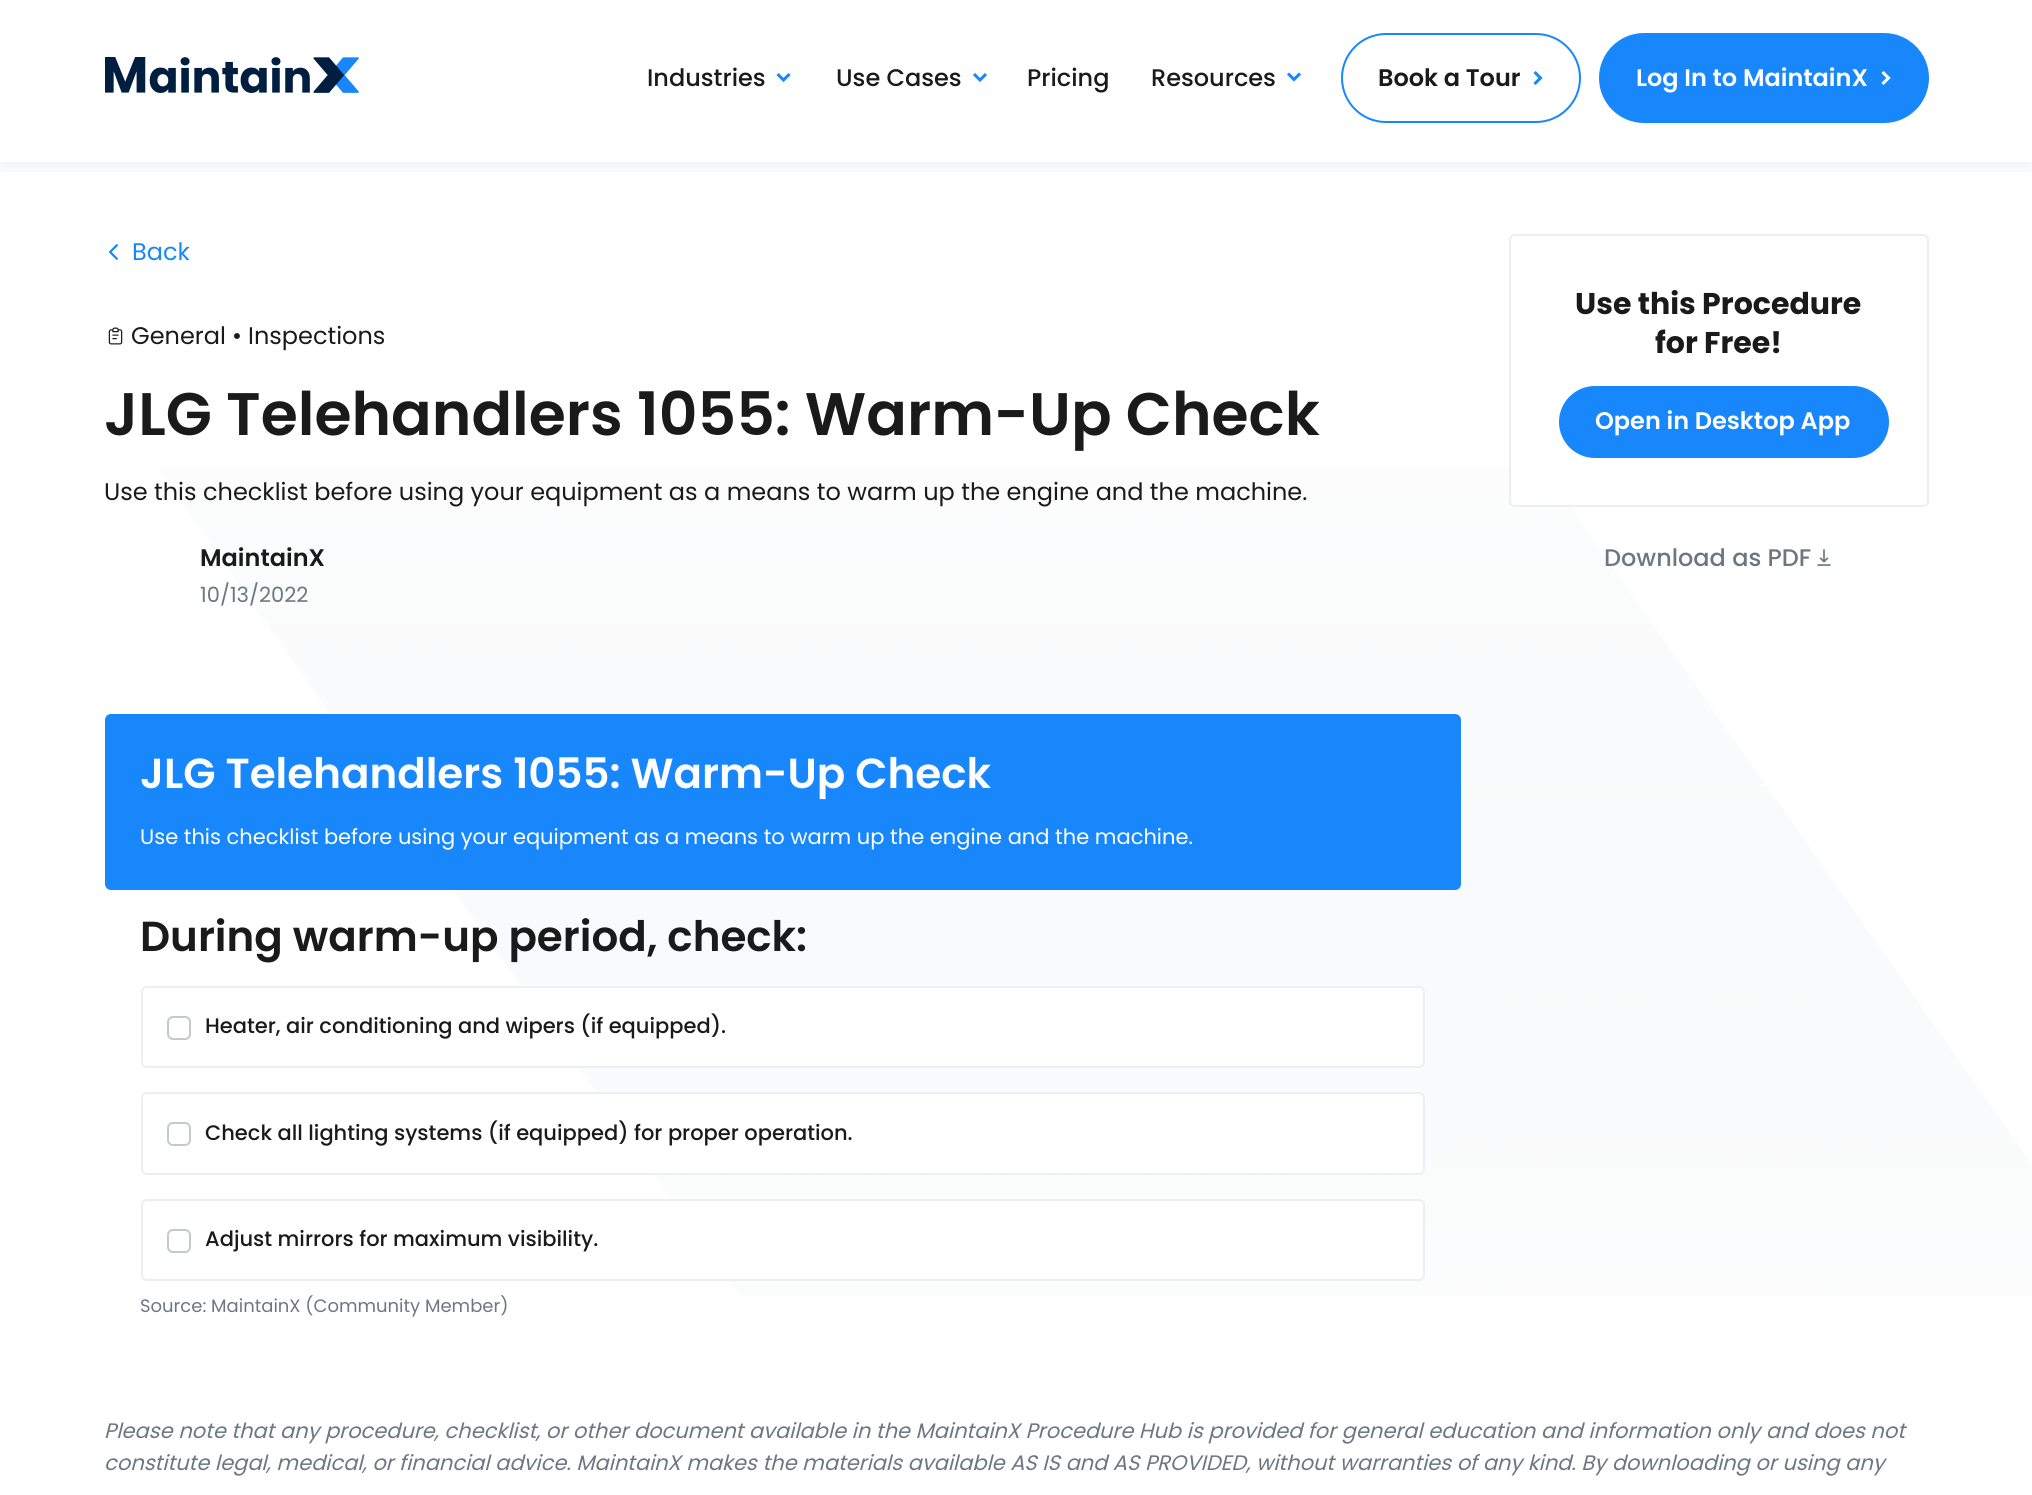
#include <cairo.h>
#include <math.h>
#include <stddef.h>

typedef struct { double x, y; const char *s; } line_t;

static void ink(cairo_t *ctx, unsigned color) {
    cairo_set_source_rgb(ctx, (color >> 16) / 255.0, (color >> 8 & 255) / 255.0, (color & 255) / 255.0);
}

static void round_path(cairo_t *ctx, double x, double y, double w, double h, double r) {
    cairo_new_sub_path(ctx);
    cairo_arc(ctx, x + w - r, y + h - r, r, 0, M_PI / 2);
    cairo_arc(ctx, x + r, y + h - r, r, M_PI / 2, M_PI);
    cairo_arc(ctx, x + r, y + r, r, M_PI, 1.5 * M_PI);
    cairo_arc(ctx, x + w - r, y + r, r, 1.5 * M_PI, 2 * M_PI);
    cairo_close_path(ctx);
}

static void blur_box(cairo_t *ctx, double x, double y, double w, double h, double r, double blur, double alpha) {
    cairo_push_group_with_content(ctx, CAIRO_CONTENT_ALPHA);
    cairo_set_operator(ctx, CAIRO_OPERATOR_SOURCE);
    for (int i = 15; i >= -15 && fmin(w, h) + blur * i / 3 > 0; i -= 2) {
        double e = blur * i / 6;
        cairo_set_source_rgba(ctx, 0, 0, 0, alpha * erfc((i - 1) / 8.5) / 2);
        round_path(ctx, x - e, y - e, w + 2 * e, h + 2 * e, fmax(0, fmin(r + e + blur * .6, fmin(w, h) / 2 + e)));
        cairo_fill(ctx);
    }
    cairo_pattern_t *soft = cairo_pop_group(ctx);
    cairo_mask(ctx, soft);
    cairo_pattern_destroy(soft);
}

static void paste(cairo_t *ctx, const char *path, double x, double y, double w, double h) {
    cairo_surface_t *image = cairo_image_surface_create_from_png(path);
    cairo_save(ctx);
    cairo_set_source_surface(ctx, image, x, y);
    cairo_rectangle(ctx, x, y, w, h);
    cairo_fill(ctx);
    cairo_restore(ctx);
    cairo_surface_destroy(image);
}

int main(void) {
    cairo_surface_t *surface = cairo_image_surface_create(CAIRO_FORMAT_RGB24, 2032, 1495);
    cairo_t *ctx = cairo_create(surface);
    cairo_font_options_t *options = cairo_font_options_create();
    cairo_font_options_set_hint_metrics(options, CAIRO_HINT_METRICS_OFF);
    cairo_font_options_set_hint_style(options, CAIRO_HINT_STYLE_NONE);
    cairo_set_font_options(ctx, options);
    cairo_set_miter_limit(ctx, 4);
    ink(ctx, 0xFFFFFF);
    cairo_paint(ctx);
    paste(ctx, "media/1.png", 158, 468, 1874, 828);
    cairo_save(ctx);
    cairo_rectangle(ctx, 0, 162, 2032, 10);
    cairo_clip(ctx);
    ink(ctx, 0x001E40);
    blur_box(ctx, 0, 0, 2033, 162, 0, 12, 0.1);
    cairo_restore(ctx);
    paste(ctx, "media/2.png", 105, 57, 254, 36);
    cairo_select_font_face(ctx, "Poppins Medium", CAIRO_FONT_SLANT_NORMAL, CAIRO_FONT_WEIGHT_NORMAL);
    cairo_set_font_size(ctx, 24);
    ink(ctx, 0x1A1A1A);
    cairo_move_to(ctx, 647, 86);
    cairo_show_text(ctx, "Industries");
    cairo_new_path(ctx);
    cairo_move_to(ctx, 777.5, 74);
    cairo_line_to(ctx, 783.5, 80);
    cairo_line_to(ctx, 789.5, 74);
    ink(ctx, 0x1887FC);
    cairo_set_line_width(ctx, 3);
    cairo_stroke(ctx);
    ink(ctx, 0x1A1A1A);
    cairo_move_to(ctx, 836, 86);
    cairo_show_text(ctx, "Use Cases");
    cairo_new_path(ctx);
    cairo_move_to(ctx, 974, 74);
    cairo_line_to(ctx, 980, 80);
    cairo_line_to(ctx, 986, 74);
    ink(ctx, 0x1887FC);
    cairo_stroke(ctx);
    ink(ctx, 0x1A1A1A);
    cairo_move_to(ctx, 1027, 86);
    cairo_show_text(ctx, "Pricing");
    cairo_move_to(ctx, 1151, 86);
    cairo_show_text(ctx, "Resources");
    cairo_new_path(ctx);
    cairo_move_to(ctx, 1288, 73.5);
    cairo_line_to(ctx, 1294, 79.5);
    cairo_line_to(ctx, 1300, 73.5);
    ink(ctx, 0x1887FC);
    cairo_stroke(ctx);
    round_path(ctx, 1342, 34, 238, 88, 44);
    cairo_set_line_width(ctx, 2);
    cairo_stroke(ctx);
    cairo_select_font_face(ctx, "Poppins SemiBold", CAIRO_FONT_SLANT_NORMAL, CAIRO_FONT_WEIGHT_NORMAL);
    ink(ctx, 0x1A1A1A);
    cairo_move_to(ctx, 1378, 86);
    cairo_show_text(ctx, "Book a Tour");
    cairo_new_path(ctx);
    cairo_move_to(ctx, 1534.5, 84);
    cairo_line_to(ctx, 1540.5, 78);
    cairo_line_to(ctx, 1534.5, 72);
    ink(ctx, 0x1887FC);
    cairo_set_line_width(ctx, 3);
    cairo_stroke(ctx);
    round_path(ctx, 1600, 34, 328, 88, 44);
    cairo_fill_preserve(ctx);
    cairo_set_line_width(ctx, 2);
    cairo_stroke(ctx);
    ink(ctx, 0xFFFFFF);
    cairo_move_to(ctx, 1636, 86);
    cairo_show_text(ctx, "Log In to MaintainX");
    cairo_new_path(ctx);
    cairo_move_to(ctx, 1882.5, 84);
    cairo_line_to(ctx, 1888.5, 78);
    cairo_line_to(ctx, 1882.5, 72);
    cairo_set_line_width(ctx, 3);
    cairo_stroke(ctx);
    paste(ctx, "media/3.png", 109, 244, 9, 16);
    cairo_select_font_face(ctx, "Poppins", CAIRO_FONT_SLANT_NORMAL, CAIRO_FONT_WEIGHT_NORMAL);
    ink(ctx, 0x1887FC);
    cairo_move_to(ctx, 132, 260);
    cairo_show_text(ctx, "Back");
    paste(ctx, "media/4.png", 108, 327, 15, 18);
    ink(ctx, 0x1A1A1A);
    {
        static const line_t items[] = {
            {131, 344, "General"},
            {232, 344, "•"},
            {248, 344, "Inspections"},
        };
        for (size_t i = 0; i < sizeof items / sizeof *items; i++) {
            cairo_move_to(ctx, items[i].x, items[i].y);
            cairo_show_text(ctx, items[i].s);
        }
    }
    cairo_select_font_face(ctx, "Poppins SemiBold", CAIRO_FONT_SLANT_NORMAL, CAIRO_FONT_WEIGHT_NORMAL);
    cairo_set_font_size(ctx, 60);
    cairo_move_to(ctx, 104, 435);
    cairo_show_text(ctx, "JLG Telehandlers 1055: Warm-Up Check");
    cairo_select_font_face(ctx, "Poppins", CAIRO_FONT_SLANT_NORMAL, CAIRO_FONT_WEIGHT_NORMAL);
    cairo_set_font_size(ctx, 24);
    cairo_move_to(ctx, 104, 500);
    cairo_show_text(ctx, "Use this checklist before using your equipment as a means to warm up the engine and the machine.");
    cairo_select_font_face(ctx, "Poppins SemiBold", CAIRO_FONT_SLANT_NORMAL, CAIRO_FONT_WEIGHT_NORMAL);
    cairo_move_to(ctx, 200, 566);
    cairo_show_text(ctx, "MaintainX");
    cairo_select_font_face(ctx, "Poppins", CAIRO_FONT_SLANT_NORMAL, CAIRO_FONT_WEIGHT_NORMAL);
    cairo_set_font_size(ctx, 21);
    ink(ctx, 0x6D7782);
    cairo_move_to(ctx, 200, 602);
    cairo_show_text(ctx, "10/13/2022");
    ink(ctx, 0xFFFFFF);
    round_path(ctx, 1510, 235, 418, 271, 5);
    cairo_fill_preserve(ctx);
    ink(ctx, 0xECEFF2);
    cairo_set_line_width(ctx, 2);
    cairo_stroke(ctx);
    cairo_select_font_face(ctx, "Poppins", CAIRO_FONT_SLANT_NORMAL, CAIRO_FONT_WEIGHT_BOLD);
    cairo_set_font_size(ctx, 30);
    ink(ctx, 0x1A1A1A);
    cairo_move_to(ctx, 1575, 314);
    cairo_show_text(ctx, "Use this Procedure");
    cairo_move_to(ctx, 1655, 353);
    cairo_show_text(ctx, "for Free!");
    ink(ctx, 0x1887FC);
    round_path(ctx, 1560, 387, 328, 70, 35);
    cairo_fill_preserve(ctx);
    cairo_stroke(ctx);
    cairo_select_font_face(ctx, "Poppins SemiBold", CAIRO_FONT_SLANT_NORMAL, CAIRO_FONT_WEIGHT_NORMAL);
    cairo_set_font_size(ctx, 24);
    ink(ctx, 0xFFFFFF);
    cairo_move_to(ctx, 1595, 429);
    cairo_show_text(ctx, "Open in Desktop App");
    cairo_select_font_face(ctx, "Poppins Medium", CAIRO_FONT_SLANT_NORMAL, CAIRO_FONT_WEIGHT_NORMAL);
    ink(ctx, 0x6D7782);
    cairo_move_to(ctx, 1604, 566);
    cairo_show_text(ctx, "Download as PDF");
    paste(ctx, "media/5.png", 1817, 549, 14, 17);
    ink(ctx, 0x1887FC);
    round_path(ctx, 105, 714, 1356, 176, 6);
    cairo_fill(ctx);
    cairo_select_font_face(ctx, "Poppins SemiBold", CAIRO_FONT_SLANT_NORMAL, CAIRO_FONT_WEIGHT_NORMAL);
    cairo_set_font_size(ctx, 42);
    ink(ctx, 0xFFFFFF);
    cairo_move_to(ctx, 140, 788);
    cairo_show_text(ctx, "JLG Telehandlers 1055: Warm-Up Check");
    cairo_select_font_face(ctx, "Poppins", CAIRO_FONT_SLANT_NORMAL, CAIRO_FONT_WEIGHT_NORMAL);
    cairo_set_font_size(ctx, 21);
    cairo_move_to(ctx, 140, 844);
    cairo_show_text(ctx, "Use this checklist before using your equipment as a means to warm up the engine and the machine.");
    cairo_select_font_face(ctx, "Poppins SemiBold", CAIRO_FONT_SLANT_NORMAL, CAIRO_FONT_WEIGHT_NORMAL);
    cairo_set_font_size(ctx, 42);
    ink(ctx, 0x1A1A1A);
    cairo_move_to(ctx, 140, 951);
    cairo_show_text(ctx, "During warm-up period, check:");
    ink(ctx, 0xFFFFFF);
    round_path(ctx, 142, 987, 1282, 80, 5);
    cairo_fill_preserve(ctx);
    ink(ctx, 0xECEFF2);
    cairo_stroke(ctx);
    round_path(ctx, 168, 1017, 22, 22, 5);
    ink(ctx, 0xC2CAD1);
    cairo_stroke(ctx);
    cairo_select_font_face(ctx, "Poppins Medium", CAIRO_FONT_SLANT_NORMAL, CAIRO_FONT_WEIGHT_NORMAL);
    cairo_set_font_size(ctx, 21);
    ink(ctx, 0x1A1A1A);
    cairo_move_to(ctx, 205, 1033);
    cairo_show_text(ctx, "Heater, air conditioning and wipers (if equipped).");
    ink(ctx, 0xFFFFFF);
    round_path(ctx, 142, 1093, 1282, 81, 5);
    cairo_fill_preserve(ctx);
    ink(ctx, 0xECEFF2);
    cairo_stroke(ctx);
    round_path(ctx, 168, 1123, 22, 22, 5);
    ink(ctx, 0xC2CAD1);
    cairo_stroke(ctx);
    ink(ctx, 0x1A1A1A);
    cairo_move_to(ctx, 205, 1140);
    cairo_show_text(ctx, "Check all lighting systems (if equipped) for proper operation.");
    ink(ctx, 0xFFFFFF);
    round_path(ctx, 142, 1200, 1282, 80, 5);
    cairo_fill_preserve(ctx);
    ink(ctx, 0xECEFF2);
    cairo_stroke(ctx);
    round_path(ctx, 168, 1230, 22, 22, 5);
    ink(ctx, 0xC2CAD1);
    cairo_stroke(ctx);
    ink(ctx, 0x1A1A1A);
    cairo_move_to(ctx, 205, 1246);
    cairo_show_text(ctx, "Adjust mirrors for maximum visibility.");
    cairo_select_font_face(ctx, "Poppins", CAIRO_FONT_SLANT_NORMAL, CAIRO_FONT_WEIGHT_NORMAL);
    cairo_set_font_size(ctx, 18);
    ink(ctx, 0x6D7782);
    cairo_move_to(ctx, 140, 1312);
    cairo_show_text(ctx, "Source: MaintainX (Community Member)");
    cairo_select_font_face(ctx, "Poppins", CAIRO_FONT_SLANT_ITALIC, CAIRO_FONT_WEIGHT_NORMAL);
    cairo_set_font_size(ctx, 21);
    cairo_move_to(ctx, 104, 1438);
    cairo_show_text(ctx, "Please note that any procedure, checklist, or other document available in the MaintainX Procedure Hub is provided for general education and information only and does not");
    cairo_move_to(ctx, 104, 1470);
    cairo_show_text(ctx, "constitute legal, medical, or financial advice. MaintainX makes the materials available AS IS and AS PROVIDED, without warranties of any kind. By downloading or using any");
    cairo_surface_write_to_png(surface, "image.png");
    cairo_font_options_destroy(options);
    cairo_destroy(ctx);
    cairo_surface_destroy(surface);
    return 0;
}
